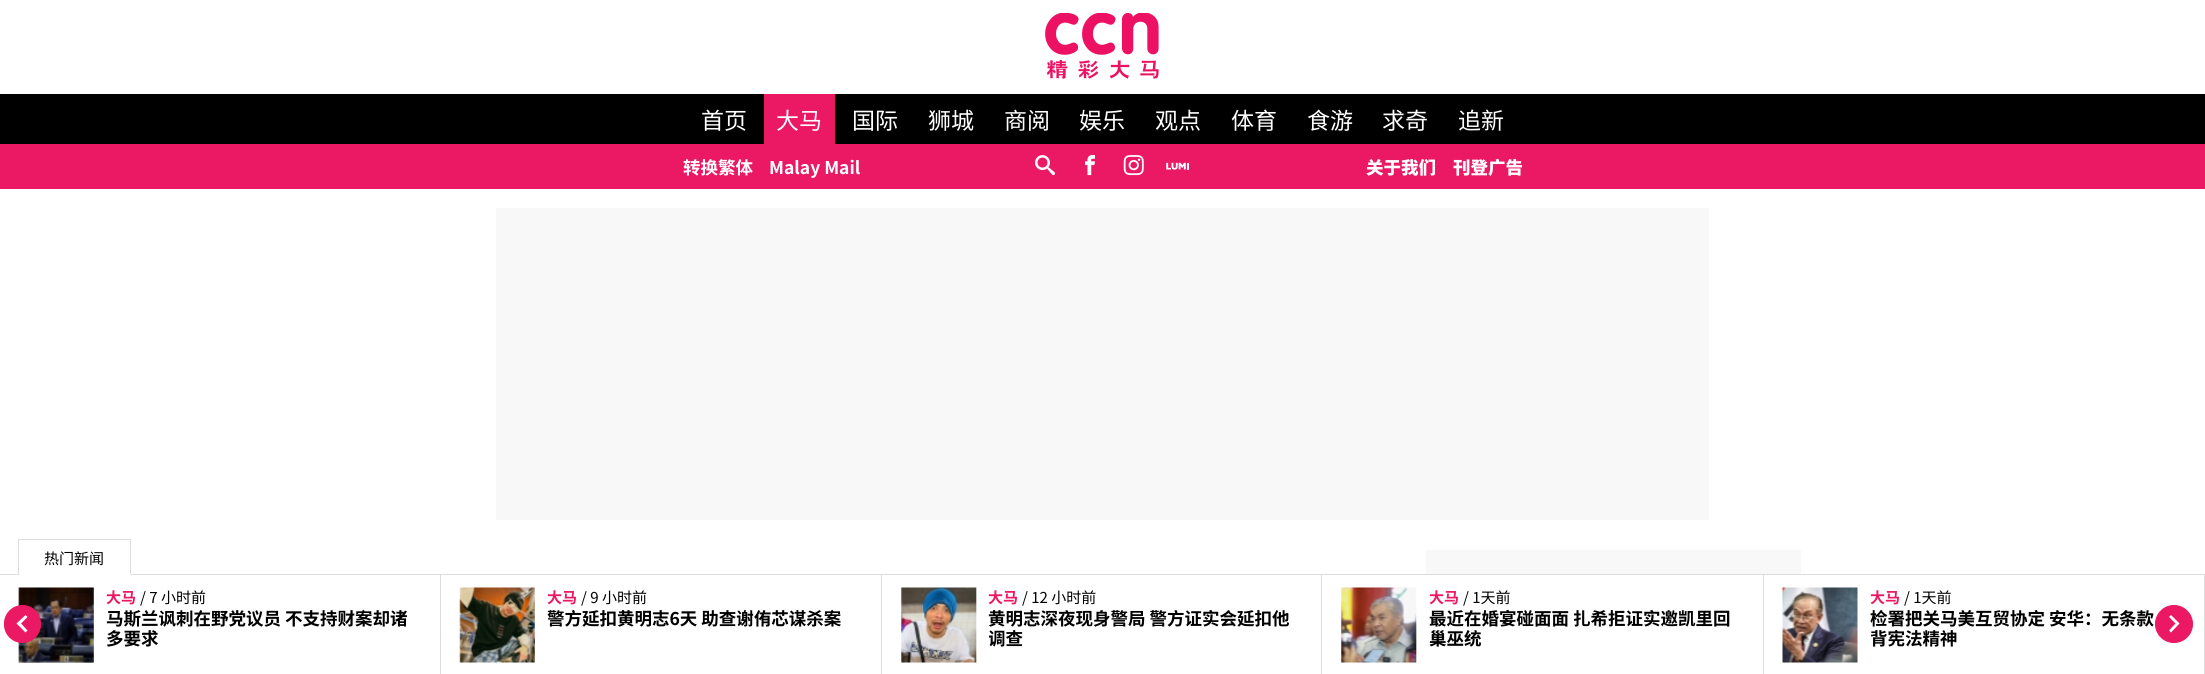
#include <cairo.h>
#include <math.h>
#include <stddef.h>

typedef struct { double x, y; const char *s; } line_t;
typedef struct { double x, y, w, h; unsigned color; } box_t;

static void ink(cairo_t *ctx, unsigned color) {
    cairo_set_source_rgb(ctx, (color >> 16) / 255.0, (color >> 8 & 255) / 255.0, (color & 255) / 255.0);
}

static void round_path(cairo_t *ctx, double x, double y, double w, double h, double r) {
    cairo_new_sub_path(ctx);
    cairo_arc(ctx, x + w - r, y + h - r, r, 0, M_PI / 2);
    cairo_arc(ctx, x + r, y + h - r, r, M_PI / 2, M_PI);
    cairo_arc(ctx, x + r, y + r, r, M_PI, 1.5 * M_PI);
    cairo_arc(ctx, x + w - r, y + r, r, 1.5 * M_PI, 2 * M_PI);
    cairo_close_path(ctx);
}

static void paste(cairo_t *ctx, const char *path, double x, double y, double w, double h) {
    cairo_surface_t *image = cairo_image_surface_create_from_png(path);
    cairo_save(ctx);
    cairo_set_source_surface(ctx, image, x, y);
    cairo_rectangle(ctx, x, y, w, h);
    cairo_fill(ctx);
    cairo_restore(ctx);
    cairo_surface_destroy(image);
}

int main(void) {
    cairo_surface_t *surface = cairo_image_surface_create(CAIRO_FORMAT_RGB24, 2205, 674);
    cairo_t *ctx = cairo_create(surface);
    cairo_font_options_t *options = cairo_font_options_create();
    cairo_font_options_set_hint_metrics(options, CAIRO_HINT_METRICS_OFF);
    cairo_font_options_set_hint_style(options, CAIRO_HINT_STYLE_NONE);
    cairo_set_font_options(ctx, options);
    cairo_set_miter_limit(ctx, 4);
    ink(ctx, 0xFFFFFF);
    cairo_paint(ctx);
    paste(ctx, "media/1.png", 1045, 13, 114, 66);
    ink(ctx, 0x000000);
    cairo_rectangle(ctx, 0, 94, 2205, 50);
    cairo_fill(ctx);
    cairo_select_font_face(ctx, "Noto Sans SC", CAIRO_FONT_SLANT_NORMAL, CAIRO_FONT_WEIGHT_NORMAL);
    cairo_set_font_size(ctx, 23);
    ink(ctx, 0xFFFFFF);
    cairo_move_to(ctx, 701, 129);
    cairo_show_text(ctx, "首页");
    ink(ctx, 0xEB1863);
    cairo_rectangle(ctx, 764, 94, 71, 50);
    cairo_fill(ctx);
    ink(ctx, 0xFFFFFF);
    {
        static const line_t items[] = {
            {776, 129, "大马"},
            {852, 129, "国际"},
            {928, 129, "狮城"},
            {1004, 129, "商阅"},
            {1079, 129, "娱乐"},
            {1155, 129, "观点"},
            {1231, 129, "体育"},
            {1307, 129, "食游"},
            {1382, 129, "求奇"},
            {1458, 129, "追新"},
        };
        for (size_t i = 0; i < sizeof items / sizeof *items; i++) {
            cairo_move_to(ctx, items[i].x, items[i].y);
            cairo_show_text(ctx, items[i].s);
        }
    }
    ink(ctx, 0xEB1863);
    cairo_rectangle(ctx, 0, 144, 2205, 45);
    cairo_fill(ctx);
    cairo_select_font_face(ctx, "Noto Sans SC", CAIRO_FONT_SLANT_NORMAL, CAIRO_FONT_WEIGHT_BOLD);
    cairo_set_font_size(ctx, 17.5);
    ink(ctx, 0xFFFFFF);
    cairo_move_to(ctx, 683, 174);
    cairo_show_text(ctx, "转换繁体");
    cairo_move_to(ctx, 769, 174);
    cairo_show_text(ctx, "Malay Mail");
    paste(ctx, "media/2.png", 1035, 155, 20, 21);
    paste(ctx, "media/3.png", 1085, 155, 10, 21);
    paste(ctx, "media/4.png", 1123, 155, 21, 21);
    paste(ctx, "media/5.png", 1166, 162, 23, 8);
    cairo_select_font_face(ctx, "Noto Sans SC Black", CAIRO_FONT_SLANT_NORMAL, CAIRO_FONT_WEIGHT_NORMAL);
    cairo_move_to(ctx, 1366, 174);
    cairo_show_text(ctx, "关于我们");
    cairo_move_to(ctx, 1453, 174);
    cairo_show_text(ctx, "刊登广告");
    {
        static const box_t items[] = {
            {496, 208, 1213, 312, 0xF9F8F8},
            {1426, 550, 375, 24, 0xF9F8F8},
            {18, 539, 113, 1, 0xDDDDDD},
            {0, 574, 2205, 1, 0xDDDDDD},
            {130, 539, 1, 36, 0xDDDDDD},
            {18, 574, 113, 1, 0xFFFFFF},
            {18, 539, 1, 36, 0xDDDDDD},
        };
        for (size_t i = 0; i < sizeof items / sizeof *items; i++) {
            ink(ctx, items[i].color);
            cairo_rectangle(ctx, items[i].x, items[i].y, items[i].w, items[i].h);
            cairo_fill(ctx);
        }
    }
    cairo_select_font_face(ctx, "Noto Sans SC", CAIRO_FONT_SLANT_NORMAL, CAIRO_FONT_WEIGHT_NORMAL);
    cairo_set_font_size(ctx, 15);
    ink(ctx, 0x000000);
    cairo_move_to(ctx, 44, 564);
    cairo_show_text(ctx, "热门新闻");
    ink(ctx, 0xDDDDDD);
    cairo_rectangle(ctx, 440, 575, 1, 99);
    cairo_fill(ctx);
    paste(ctx, "media/6.png", 18, 587, 76, 76);
    cairo_select_font_face(ctx, "Noto Sans SC", CAIRO_FONT_SLANT_NORMAL, CAIRO_FONT_WEIGHT_BOLD);
    ink(ctx, 0xEB1863);
    cairo_move_to(ctx, 106, 603);
    cairo_show_text(ctx, "大马");
    cairo_select_font_face(ctx, "Noto Sans SC", CAIRO_FONT_SLANT_NORMAL, CAIRO_FONT_WEIGHT_NORMAL);
    ink(ctx, 0x000000);
    cairo_move_to(ctx, 140, 603);
    cairo_show_text(ctx, "/ 7 小时前");
    cairo_select_font_face(ctx, "Noto Sans SC", CAIRO_FONT_SLANT_NORMAL, CAIRO_FONT_WEIGHT_BOLD);
    cairo_set_font_size(ctx, 17.5);
    cairo_move_to(ctx, 106, 625);
    cairo_show_text(ctx, "马斯兰讽刺在野党议员 不支持财案却诸");
    cairo_move_to(ctx, 106, 645);
    cairo_show_text(ctx, "多要求");
    ink(ctx, 0xDDDDDD);
    cairo_rectangle(ctx, 881, 575, 1, 99);
    cairo_fill(ctx);
    paste(ctx, "media/7.png", 459, 587, 76, 76);
    cairo_set_font_size(ctx, 15);
    ink(ctx, 0xEB1863);
    cairo_move_to(ctx, 547, 603);
    cairo_show_text(ctx, "大马");
    cairo_select_font_face(ctx, "Noto Sans SC", CAIRO_FONT_SLANT_NORMAL, CAIRO_FONT_WEIGHT_NORMAL);
    ink(ctx, 0x000000);
    cairo_move_to(ctx, 581, 603);
    cairo_show_text(ctx, "/ 9 小时前");
    cairo_select_font_face(ctx, "Noto Sans SC", CAIRO_FONT_SLANT_NORMAL, CAIRO_FONT_WEIGHT_BOLD);
    cairo_set_font_size(ctx, 17.5);
    cairo_move_to(ctx, 547, 625);
    cairo_show_text(ctx, "警方延扣黄明志6天 助查谢侑芯谋杀案");
    ink(ctx, 0xDDDDDD);
    cairo_rectangle(ctx, 1321, 575, 1, 99);
    cairo_fill(ctx);
    paste(ctx, "media/8.png", 901, 587, 76, 76);
    cairo_set_font_size(ctx, 15);
    ink(ctx, 0xEB1863);
    cairo_move_to(ctx, 988, 603);
    cairo_show_text(ctx, "大马");
    cairo_select_font_face(ctx, "Noto Sans SC", CAIRO_FONT_SLANT_NORMAL, CAIRO_FONT_WEIGHT_NORMAL);
    ink(ctx, 0x000000);
    cairo_move_to(ctx, 1022, 603);
    cairo_show_text(ctx, "/ 12 小时前");
    cairo_select_font_face(ctx, "Noto Sans SC", CAIRO_FONT_SLANT_NORMAL, CAIRO_FONT_WEIGHT_BOLD);
    cairo_set_font_size(ctx, 17.5);
    cairo_move_to(ctx, 988, 625);
    cairo_show_text(ctx, "黄明志深夜现身警局 警方证实会延扣他");
    cairo_save(ctx);
    cairo_rectangle(ctx, 989, 608, 301, 40);
    cairo_clip(ctx);
    cairo_move_to(ctx, 988, 645);
    cairo_show_text(ctx, "调查");
    cairo_restore(ctx);
    ink(ctx, 0xDDDDDD);
    cairo_rectangle(ctx, 1763, 575, 1, 99);
    cairo_fill(ctx);
    paste(ctx, "media/9.png", 1341, 587, 76, 76);
    cairo_set_font_size(ctx, 15);
    ink(ctx, 0xEB1863);
    cairo_move_to(ctx, 1429, 603);
    cairo_show_text(ctx, "大马");
    cairo_select_font_face(ctx, "Noto Sans SC", CAIRO_FONT_SLANT_NORMAL, CAIRO_FONT_WEIGHT_NORMAL);
    ink(ctx, 0x000000);
    cairo_move_to(ctx, 1463, 603);
    cairo_show_text(ctx, "/ 1天前");
    cairo_select_font_face(ctx, "Noto Sans SC", CAIRO_FONT_SLANT_NORMAL, CAIRO_FONT_WEIGHT_BOLD);
    cairo_set_font_size(ctx, 17.5);
    cairo_move_to(ctx, 1429, 625);
    cairo_show_text(ctx, "最近在婚宴碰面面 扎希拒证实邀凯里回");
    cairo_move_to(ctx, 1429, 645);
    cairo_show_text(ctx, "巢巫统");
    ink(ctx, 0xDDDDDD);
    cairo_rectangle(ctx, 2204, 575, 1, 99);
    cairo_fill(ctx);
    paste(ctx, "media/10.png", 1782, 587, 76, 76);
    cairo_set_font_size(ctx, 15);
    ink(ctx, 0xEB1863);
    cairo_move_to(ctx, 1870, 603);
    cairo_show_text(ctx, "大马");
    cairo_select_font_face(ctx, "Noto Sans SC", CAIRO_FONT_SLANT_NORMAL, CAIRO_FONT_WEIGHT_NORMAL);
    ink(ctx, 0x000000);
    cairo_move_to(ctx, 1904, 603);
    cairo_show_text(ctx, "/ 1天前");
    cairo_select_font_face(ctx, "Noto Sans SC", CAIRO_FONT_SLANT_NORMAL, CAIRO_FONT_WEIGHT_BOLD);
    cairo_set_font_size(ctx, 17.5);
    cairo_move_to(ctx, 1870, 625);
    cairo_show_text(ctx, "检署把关马美互贸协定 安华：无条款");
    cairo_move_to(ctx, 1870, 645);
    cairo_show_text(ctx, "背宪法精神");
    ink(ctx, 0xEB1863);
    round_path(ctx, 4.5, 605.5, 36, 37, 18);
    cairo_fill_preserve(ctx);
    cairo_set_line_width(ctx, 1);
    cairo_stroke(ctx);
    ink(ctx, 0xFFFFFF);
    cairo_new_path(ctx);
    cairo_move_to(ctx, 27.5, 630.5);
    cairo_line_to(ctx, 25.5, 632.5);
    cairo_line_to(ctx, 16.5, 623.5);
    cairo_line_to(ctx, 25.5, 615);
    cairo_line_to(ctx, 27.5, 617);
    cairo_line_to(ctx, 21, 623.5);
    cairo_close_path(ctx);
    cairo_fill(ctx);
    ink(ctx, 0xEB1863);
    cairo_arc(ctx, 2174, 624, 18.5, 0, 2 * M_PI);
    cairo_fill_preserve(ctx);
    cairo_stroke(ctx);
    ink(ctx, 0xFFFFFF);
    cairo_new_path(ctx);
    cairo_move_to(ctx, 2169, 630.5);
    cairo_line_to(ctx, 2175.5, 623.5);
    cairo_line_to(ctx, 2169, 617);
    cairo_line_to(ctx, 2171, 615);
    cairo_line_to(ctx, 2179.5, 623.5);
    cairo_line_to(ctx, 2171, 632.5);
    cairo_close_path(ctx);
    cairo_fill(ctx);
    cairo_surface_write_to_png(surface, "image.png");
    cairo_font_options_destroy(options);
    cairo_destroy(ctx);
    cairo_surface_destroy(surface);
    return 0;
}
